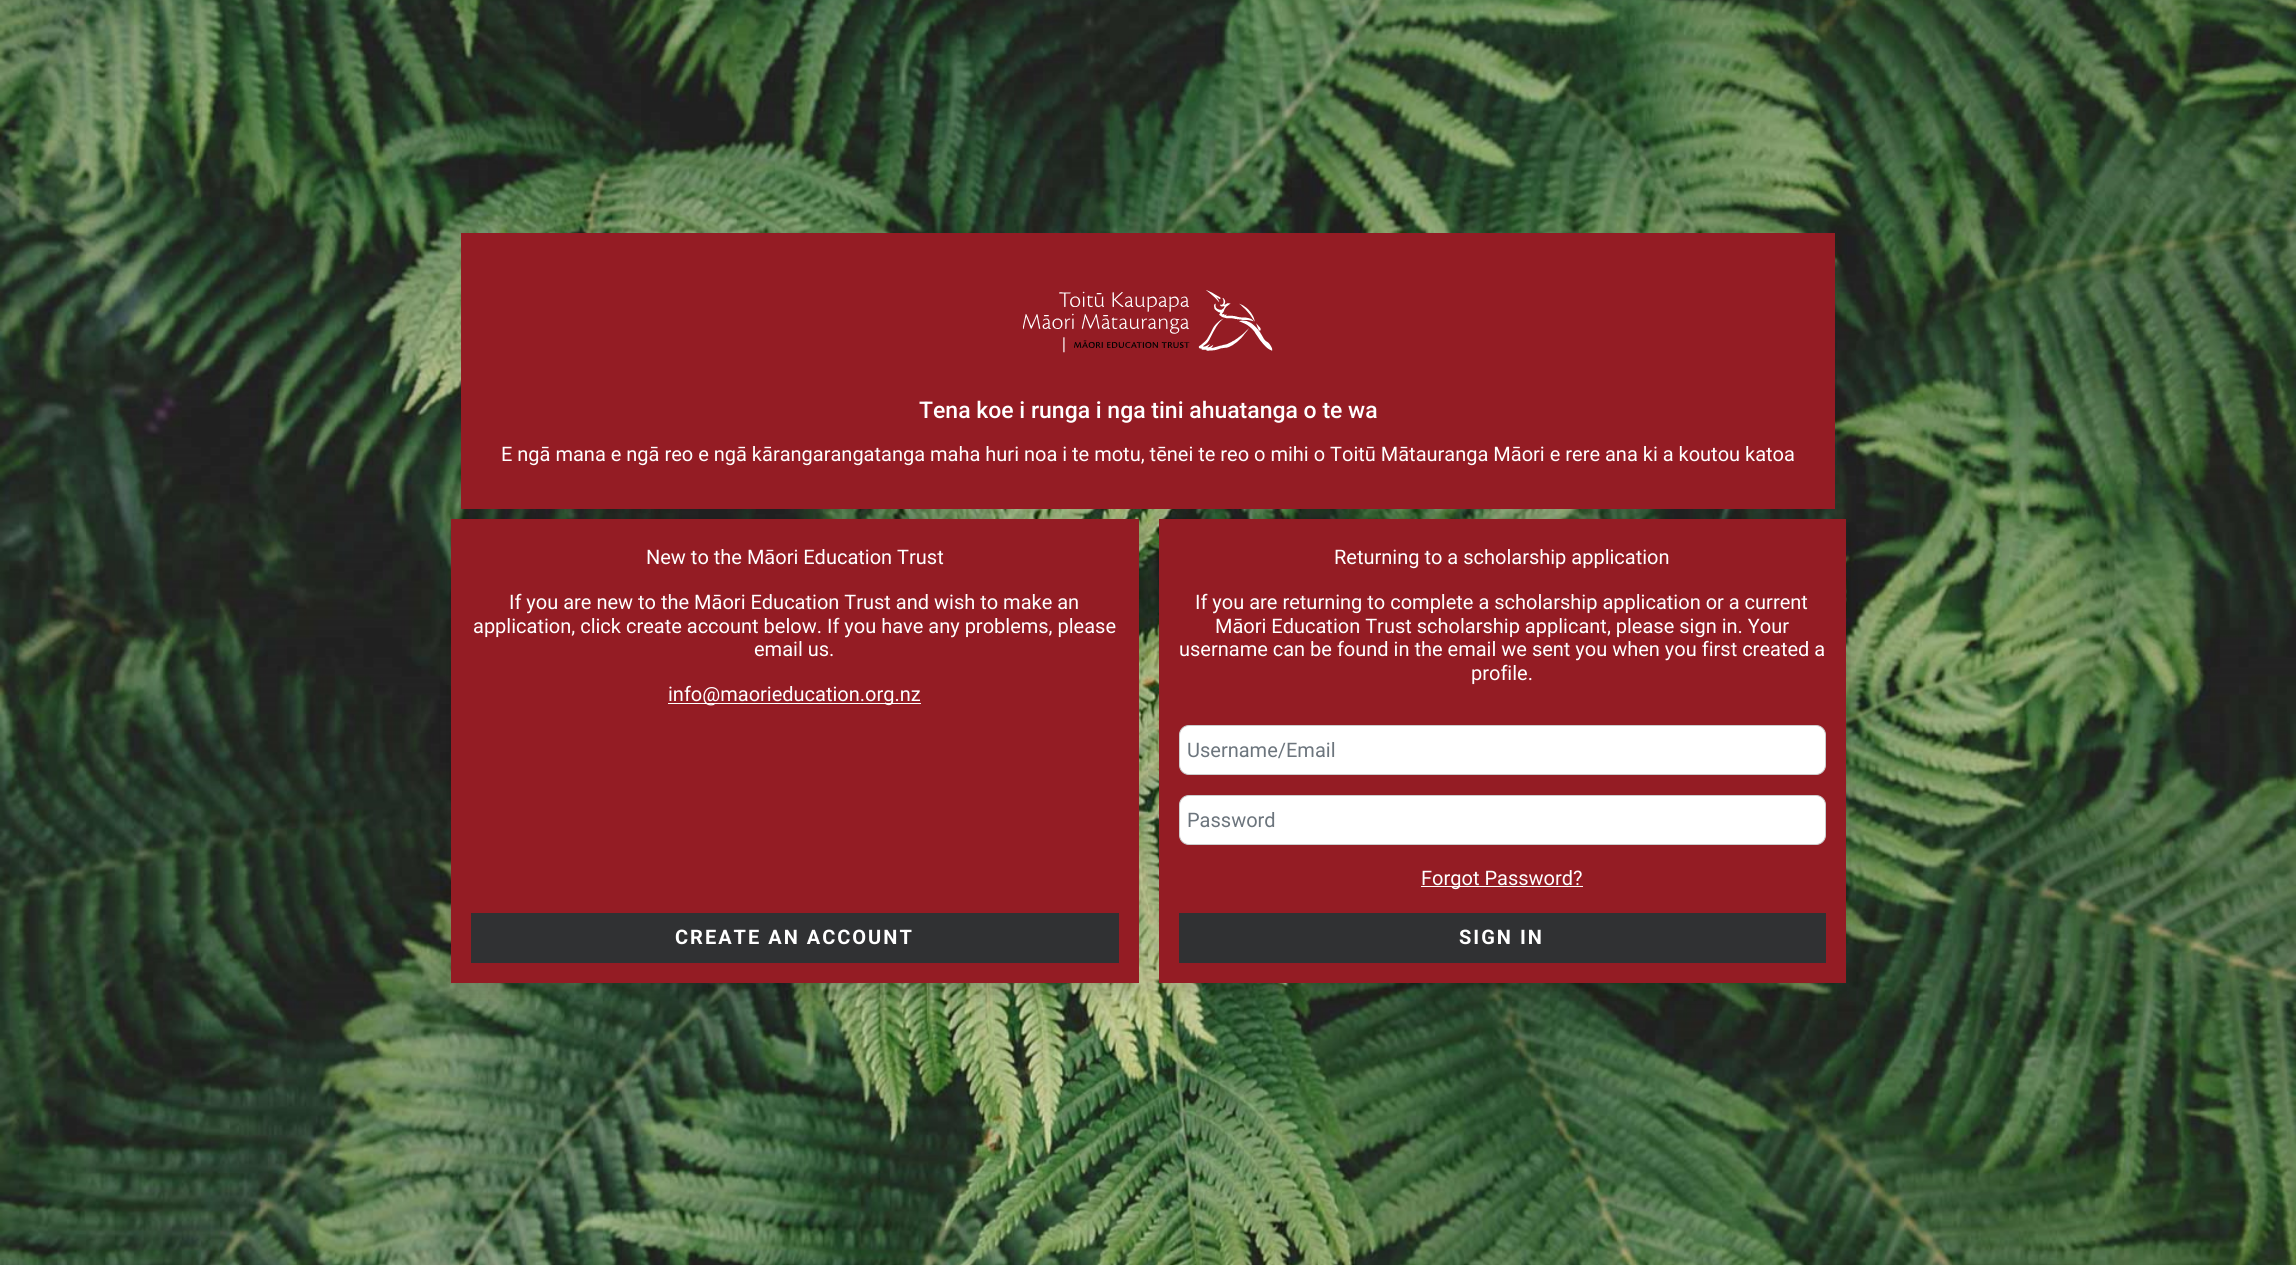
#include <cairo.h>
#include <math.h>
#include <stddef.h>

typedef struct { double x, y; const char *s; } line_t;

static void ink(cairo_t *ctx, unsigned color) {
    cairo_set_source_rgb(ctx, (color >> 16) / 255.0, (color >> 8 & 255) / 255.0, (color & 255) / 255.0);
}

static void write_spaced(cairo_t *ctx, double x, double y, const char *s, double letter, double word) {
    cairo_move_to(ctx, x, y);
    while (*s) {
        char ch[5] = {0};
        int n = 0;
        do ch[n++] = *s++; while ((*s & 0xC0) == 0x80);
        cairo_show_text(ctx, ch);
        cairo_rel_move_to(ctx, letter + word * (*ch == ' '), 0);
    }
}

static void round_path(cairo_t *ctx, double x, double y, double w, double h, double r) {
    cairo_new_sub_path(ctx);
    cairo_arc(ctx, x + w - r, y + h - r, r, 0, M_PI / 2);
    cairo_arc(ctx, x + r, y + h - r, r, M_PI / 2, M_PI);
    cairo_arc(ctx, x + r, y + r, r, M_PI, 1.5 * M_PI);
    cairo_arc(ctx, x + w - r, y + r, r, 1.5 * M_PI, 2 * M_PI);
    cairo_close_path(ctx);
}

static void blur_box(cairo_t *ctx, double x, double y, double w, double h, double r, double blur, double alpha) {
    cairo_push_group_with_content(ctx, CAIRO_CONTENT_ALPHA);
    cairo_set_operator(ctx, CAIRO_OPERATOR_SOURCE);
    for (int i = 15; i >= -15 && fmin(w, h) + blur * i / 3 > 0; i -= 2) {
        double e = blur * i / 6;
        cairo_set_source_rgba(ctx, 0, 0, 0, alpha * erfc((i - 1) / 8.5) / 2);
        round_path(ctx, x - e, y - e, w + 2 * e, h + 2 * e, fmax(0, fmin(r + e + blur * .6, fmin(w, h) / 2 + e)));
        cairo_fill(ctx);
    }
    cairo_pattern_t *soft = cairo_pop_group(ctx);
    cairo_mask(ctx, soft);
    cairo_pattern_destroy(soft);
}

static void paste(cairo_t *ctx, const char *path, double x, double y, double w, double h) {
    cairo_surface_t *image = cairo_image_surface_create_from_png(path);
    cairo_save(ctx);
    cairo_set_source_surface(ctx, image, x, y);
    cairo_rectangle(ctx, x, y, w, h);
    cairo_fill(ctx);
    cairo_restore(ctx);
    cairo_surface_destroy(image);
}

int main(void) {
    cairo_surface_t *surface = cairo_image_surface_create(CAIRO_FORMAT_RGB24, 2296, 1265);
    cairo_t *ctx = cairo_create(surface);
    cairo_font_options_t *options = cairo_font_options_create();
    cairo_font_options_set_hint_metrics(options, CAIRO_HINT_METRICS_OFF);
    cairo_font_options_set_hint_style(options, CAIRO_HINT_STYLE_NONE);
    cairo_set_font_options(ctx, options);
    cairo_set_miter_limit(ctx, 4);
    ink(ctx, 0xFFFFFF);
    cairo_paint(ctx);
    paste(ctx, "media/1.png", 0, 0, 2296, 1265);
    ink(ctx, 0x941C24);
    cairo_rectangle(ctx, 461, 233, 1374, 276);
    cairo_fill(ctx);
    paste(ctx, "media/2.png", 1023, 290, 250, 63);
    cairo_select_font_face(ctx, "Roboto Medium", CAIRO_FONT_SLANT_NORMAL, CAIRO_FONT_WEIGHT_NORMAL);
    cairo_set_font_size(ctx, 23);
    ink(ctx, 0xFFFFFF);
    cairo_move_to(ctx, 919, 418);
    cairo_show_text(ctx, "Tena koe i runga i nga tini ahuatanga o te wa");
    cairo_select_font_face(ctx, "Roboto", CAIRO_FONT_SLANT_NORMAL, CAIRO_FONT_WEIGHT_NORMAL);
    cairo_set_font_size(ctx, 20);
    cairo_move_to(ctx, 501, 461);
    cairo_show_text(ctx, "E ngā mana e ngā reo e ngā kārangarangatanga maha huri noa i te motu, tēnei te reo o mihi o Toitū Mātauranga Māori e rere ana ki a koutou katoa");
    ink(ctx, 0x000000);
    blur_box(ctx, 451, 529, 688, 464, 0, 10, 0.15);
    ink(ctx, 0x941C24);
    cairo_rectangle(ctx, 451, 519, 688, 464);
    cairo_fill(ctx);
    ink(ctx, 0xFFFFFF);
    {
        static const line_t items[] = {
            {646, 564, "New to the Māori Education Trust"},
            {509, 609, "If you are new to the Māori Education Trust and wish to make an"},
            {473, 633, "application, click create account below. If you have any problems, please"},
            {754, 656, "email us."},
        };
        for (size_t i = 0; i < sizeof items / sizeof *items; i++) {
            cairo_move_to(ctx, items[i].x, items[i].y);
            cairo_show_text(ctx, items[i].s);
        }
    }
    cairo_rectangle(ctx, 668, 703, 253, 1);
    cairo_fill(ctx);
    cairo_move_to(ctx, 668, 701);
    cairo_show_text(ctx, "info@maorieducation.org.nz");
    ink(ctx, 0x303133);
    cairo_rectangle(ctx, 471, 913, 648, 50);
    cairo_fill(ctx);
    cairo_select_font_face(ctx, "Roboto", CAIRO_FONT_SLANT_NORMAL, CAIRO_FONT_WEIGHT_BOLD);
    ink(ctx, 0xFFFFFF);
    write_spaced(ctx, 675, 944, "CREATE AN ACCOUNT", 2, 0);
    ink(ctx, 0x000000);
    blur_box(ctx, 1159, 529, 687, 464, 0, 10, 0.15);
    ink(ctx, 0x941C24);
    cairo_rectangle(ctx, 1159, 519, 687, 464);
    cairo_fill(ctx);
    cairo_select_font_face(ctx, "Roboto", CAIRO_FONT_SLANT_NORMAL, CAIRO_FONT_WEIGHT_NORMAL);
    ink(ctx, 0xFFFFFF);
    {
        static const line_t items[] = {
            {1334, 564, "Returning to a scholarship application"},
            {1195, 609, "If you are returning to complete a scholarship application or a current"},
            {1215, 633, "Māori Education Trust scholarship applicant, please sign in. Your"},
            {1179, 656, "username can be found in the email we sent you when you first created a"},
            {1471, 680, "profile."},
        };
        for (size_t i = 0; i < sizeof items / sizeof *items; i++) {
            cairo_move_to(ctx, items[i].x, items[i].y);
            cairo_show_text(ctx, items[i].s);
        }
    }
    round_path(ctx, 1179.5, 725.5, 646, 49, 9.5);
    cairo_fill_preserve(ctx);
    ink(ctx, 0xCCCCCC);
    cairo_set_line_width(ctx, 1);
    cairo_stroke(ctx);
    ink(ctx, 0x6C757D);
    cairo_move_to(ctx, 1187, 757);
    cairo_show_text(ctx, "Username/Email");
    ink(ctx, 0xFFFFFF);
    round_path(ctx, 1179.5, 795.5, 646, 49, 9.5);
    cairo_fill_preserve(ctx);
    ink(ctx, 0xCCCCCC);
    cairo_stroke(ctx);
    ink(ctx, 0x6C757D);
    cairo_move_to(ctx, 1187, 827);
    cairo_show_text(ctx, "Password");
    ink(ctx, 0xFFFFFF);
    cairo_rectangle(ctx, 1421, 886, 162, 1);
    cairo_fill(ctx);
    cairo_move_to(ctx, 1421, 885);
    cairo_show_text(ctx, "Forgot Password?");
    ink(ctx, 0x303133);
    cairo_rectangle(ctx, 1179, 913, 647, 50);
    cairo_fill(ctx);
    cairo_select_font_face(ctx, "Roboto", CAIRO_FONT_SLANT_NORMAL, CAIRO_FONT_WEIGHT_BOLD);
    ink(ctx, 0xFFFFFF);
    write_spaced(ctx, 1459, 944, "SIGN IN", 2, 0);
    cairo_surface_write_to_png(surface, "image.png");
    cairo_font_options_destroy(options);
    cairo_destroy(ctx);
    cairo_surface_destroy(surface);
    return 0;
}
